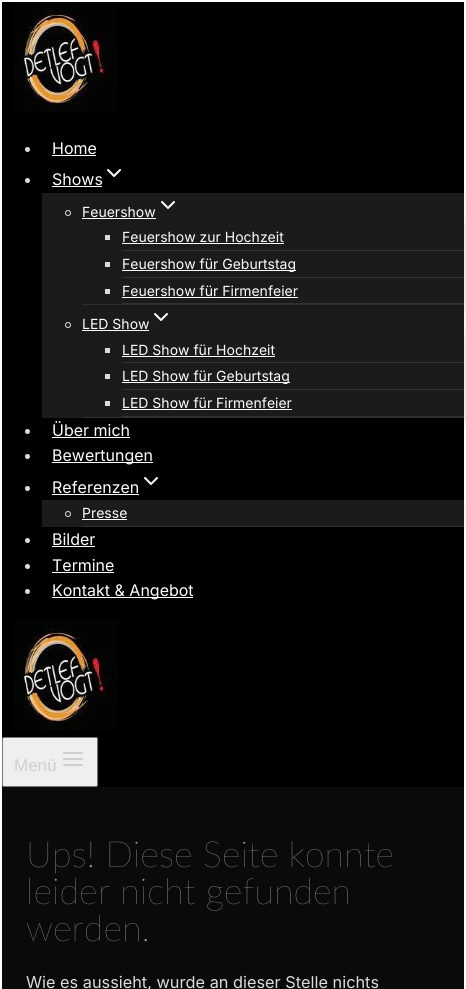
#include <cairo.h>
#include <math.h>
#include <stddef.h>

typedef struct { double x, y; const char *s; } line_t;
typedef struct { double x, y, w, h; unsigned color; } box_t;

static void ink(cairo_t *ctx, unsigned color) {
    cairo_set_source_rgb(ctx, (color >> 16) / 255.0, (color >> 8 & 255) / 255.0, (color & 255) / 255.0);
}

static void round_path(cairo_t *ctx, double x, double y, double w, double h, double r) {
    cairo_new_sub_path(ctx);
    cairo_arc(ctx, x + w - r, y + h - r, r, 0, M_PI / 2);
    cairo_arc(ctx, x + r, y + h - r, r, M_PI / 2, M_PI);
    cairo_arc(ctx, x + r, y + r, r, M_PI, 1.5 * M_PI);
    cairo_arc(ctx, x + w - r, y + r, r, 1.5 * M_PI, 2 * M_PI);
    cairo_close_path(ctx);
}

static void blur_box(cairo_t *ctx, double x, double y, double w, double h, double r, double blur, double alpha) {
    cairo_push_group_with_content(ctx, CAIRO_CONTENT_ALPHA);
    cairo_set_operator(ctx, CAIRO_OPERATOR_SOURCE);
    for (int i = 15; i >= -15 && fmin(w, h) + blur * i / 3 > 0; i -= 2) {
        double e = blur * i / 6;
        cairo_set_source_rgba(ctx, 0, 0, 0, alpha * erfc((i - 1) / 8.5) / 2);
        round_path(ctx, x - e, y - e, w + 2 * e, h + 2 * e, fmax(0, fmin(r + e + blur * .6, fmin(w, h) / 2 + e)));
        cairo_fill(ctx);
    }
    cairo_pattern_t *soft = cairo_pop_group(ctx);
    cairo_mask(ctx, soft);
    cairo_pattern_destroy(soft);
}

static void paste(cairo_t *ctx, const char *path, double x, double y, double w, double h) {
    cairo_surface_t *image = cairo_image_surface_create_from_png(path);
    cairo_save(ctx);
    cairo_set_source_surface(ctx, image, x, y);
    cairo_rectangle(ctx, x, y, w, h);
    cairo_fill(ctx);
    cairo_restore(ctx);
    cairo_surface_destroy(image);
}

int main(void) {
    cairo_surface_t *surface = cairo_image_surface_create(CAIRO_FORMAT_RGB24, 466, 989);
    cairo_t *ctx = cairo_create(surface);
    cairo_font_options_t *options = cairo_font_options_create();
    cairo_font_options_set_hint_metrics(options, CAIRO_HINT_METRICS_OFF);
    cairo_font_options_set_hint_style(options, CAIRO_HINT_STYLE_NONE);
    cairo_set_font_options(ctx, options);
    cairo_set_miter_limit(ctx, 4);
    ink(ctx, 0x000000);
    cairo_paint(ctx);
    cairo_rectangle(ctx, 1, 1, 464, 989);
    ink(ctx, 0xFFFFFF);
    cairo_stroke(ctx);
    paste(ctx, "media/1.png", 14, 2, 104, 110);
    ink(ctx, 0xDCDCDC);
    cairo_arc(ctx, 27.5, 149.5, 2.5, 0, 2 * M_PI);
    cairo_fill(ctx);
    cairo_select_font_face(ctx, "Inter", CAIRO_FONT_SLANT_NORMAL, CAIRO_FONT_WEIGHT_NORMAL);
    cairo_set_font_size(ctx, 16);
    ink(ctx, 0xFFFFFF);
    cairo_move_to(ctx, 52, 154);
    cairo_show_text(ctx, "Home");
    cairo_rectangle(ctx, 52, 155, 44, 1);
    cairo_fill(ctx);
    ink(ctx, 0x000000);
    blur_box(ctx, 42, 195, 422, 225, 0, 6.5, 0.1);
    ink(ctx, 0xDCDCDC);
    cairo_arc(ctx, 27.5, 180.5, 2.5, 0, 2 * M_PI);
    cairo_fill(ctx);
    ink(ctx, 0xFFFFFF);
    cairo_move_to(ctx, 52, 185);
    cairo_show_text(ctx, "Shows");
    cairo_rectangle(ctx, 52, 186, 50, 1);
    cairo_fill(ctx);
    paste(ctx, "media/2.png", 107, 169, 14, 8);
    ink(ctx, 0x1B1B1B);
    cairo_rectangle(ctx, 42, 193, 422, 225);
    cairo_fill(ctx);
    ink(ctx, 0x323232);
    cairo_rectangle(ctx, 82, 304, 382, 1);
    cairo_fill(ctx);
    cairo_save(ctx);
    cairo_set_fill_rule(ctx, CAIRO_FILL_RULE_EVEN_ODD);
    cairo_new_path(ctx);
    cairo_move_to(ctx, 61, 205);
    cairo_line_to(ctx, 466, 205);
    cairo_line_to(ctx, 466, 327);
    cairo_line_to(ctx, 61, 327);
    cairo_close_path(ctx);
    cairo_move_to(ctx, 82, 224);
    cairo_line_to(ctx, 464, 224);
    cairo_line_to(ctx, 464, 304);
    cairo_line_to(ctx, 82, 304);
    cairo_close_path(ctx);
    cairo_clip(ctx);
    ink(ctx, 0x000000);
    blur_box(ctx, 82, 226, 382, 80, 0, 6.5, 0.1);
    cairo_restore(ctx);
    paste(ctx, "media/3.png", 161, 201, 14, 8);
    cairo_arc(ctx, 68, 213, 2.5, 0, 2 * M_PI);
    ink(ctx, 0xDCDCDC);
    cairo_set_line_width(ctx, 1);
    cairo_stroke(ctx);
    cairo_set_font_size(ctx, 14);
    ink(ctx, 0xFFFFFF);
    cairo_move_to(ctx, 82, 217);
    cairo_show_text(ctx, "Feuershow");
    {
        static const box_t items[] = {
            {82, 218, 74, 1, 0xFFFFFF},
            {122, 250, 342, 1, 0x323232},
            {105, 235, 5, 5, 0xDCDCDC},
        };
        for (size_t i = 0; i < sizeof items / sizeof *items; i++) {
            ink(ctx, items[i].color);
            cairo_rectangle(ctx, items[i].x, items[i].y, items[i].w, items[i].h);
            cairo_fill(ctx);
        }
    }
    ink(ctx, 0xFFFFFF);
    cairo_move_to(ctx, 122, 242);
    cairo_show_text(ctx, "Feuershow zur Hochzeit");
    {
        static const box_t items[] = {
            {122, 243, 162, 1, 0xFFFFFF},
            {122, 277, 342, 1, 0x323232},
            {105, 262, 5, 5, 0xDCDCDC},
            {122, 270, 174, 1, 0xFFFFFF},
        };
        for (size_t i = 0; i < sizeof items / sizeof *items; i++) {
            ink(ctx, items[i].color);
            cairo_rectangle(ctx, items[i].x, items[i].y, items[i].w, items[i].h);
            cairo_fill(ctx);
        }
    }
    cairo_move_to(ctx, 122, 269);
    cairo_show_text(ctx, "Feuershow für Geburtstag");
    ink(ctx, 0x323232);
    cairo_rectangle(ctx, 122, 303, 342, 1);
    cairo_fill(ctx);
    ink(ctx, 0xDCDCDC);
    cairo_rectangle(ctx, 105, 289, 5, 5);
    cairo_fill(ctx);
    ink(ctx, 0xFFFFFF);
    cairo_move_to(ctx, 122, 296);
    cairo_show_text(ctx, "Feuershow für Firmenfeier");
    cairo_rectangle(ctx, 122, 297, 176, 1);
    cairo_fill(ctx);
    ink(ctx, 0x323232);
    cairo_rectangle(ctx, 82, 417, 382, 1);
    cairo_fill(ctx);
    cairo_save(ctx);
    cairo_set_fill_rule(ctx, CAIRO_FILL_RULE_EVEN_ODD);
    cairo_new_path(ctx);
    cairo_move_to(ctx, 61, 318);
    cairo_line_to(ctx, 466, 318);
    cairo_line_to(ctx, 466, 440);
    cairo_line_to(ctx, 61, 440);
    cairo_close_path(ctx);
    cairo_move_to(ctx, 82, 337);
    cairo_line_to(ctx, 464, 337);
    cairo_line_to(ctx, 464, 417);
    cairo_line_to(ctx, 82, 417);
    cairo_close_path(ctx);
    cairo_clip(ctx);
    ink(ctx, 0x000000);
    blur_box(ctx, 82, 339, 382, 80, 0, 6.5, 0.1);
    cairo_restore(ctx);
    paste(ctx, "media/4.png", 154, 313, 14, 8);
    cairo_arc(ctx, 68, 325, 2.5, 0, 2 * M_PI);
    ink(ctx, 0xDCDCDC);
    cairo_stroke(ctx);
    ink(ctx, 0xFFFFFF);
    cairo_move_to(ctx, 82, 329);
    cairo_show_text(ctx, "LED Show");
    {
        static const box_t items[] = {
            {82, 330, 67, 1, 0xFFFFFF},
            {122, 362, 342, 1, 0x323232},
            {105, 348, 5, 5, 0xDCDCDC},
        };
        for (size_t i = 0; i < sizeof items / sizeof *items; i++) {
            ink(ctx, items[i].color);
            cairo_rectangle(ctx, items[i].x, items[i].y, items[i].w, items[i].h);
            cairo_fill(ctx);
        }
    }
    ink(ctx, 0xFFFFFF);
    cairo_move_to(ctx, 122, 355);
    cairo_show_text(ctx, "LED Show für Hochzeit");
    {
        static const box_t items[] = {
            {122, 356, 153, 1, 0xFFFFFF},
            {122, 389, 342, 1, 0x323232},
            {105, 374, 5, 5, 0xDCDCDC},
            {122, 382, 168, 1, 0xFFFFFF},
        };
        for (size_t i = 0; i < sizeof items / sizeof *items; i++) {
            ink(ctx, items[i].color);
            cairo_rectangle(ctx, items[i].x, items[i].y, items[i].w, items[i].h);
            cairo_fill(ctx);
        }
    }
    cairo_move_to(ctx, 122, 381);
    cairo_show_text(ctx, "LED Show für Geburtstag");
    ink(ctx, 0x323232);
    cairo_rectangle(ctx, 122, 416, 342, 1);
    cairo_fill(ctx);
    ink(ctx, 0xDCDCDC);
    cairo_rectangle(ctx, 105, 401, 5, 5);
    cairo_fill(ctx);
    ink(ctx, 0xFFFFFF);
    cairo_move_to(ctx, 122, 408);
    cairo_show_text(ctx, "LED Show für Firmenfeier");
    cairo_rectangle(ctx, 122, 409, 170, 1);
    cairo_fill(ctx);
    ink(ctx, 0xDCDCDC);
    cairo_arc(ctx, 27.5, 431.5, 2.5, 0, 2 * M_PI);
    cairo_fill(ctx);
    cairo_set_font_size(ctx, 16);
    ink(ctx, 0xFFFFFF);
    cairo_move_to(ctx, 52, 436);
    cairo_show_text(ctx, "Über mich");
    cairo_rectangle(ctx, 52, 437, 78, 1);
    cairo_fill(ctx);
    ink(ctx, 0xDCDCDC);
    cairo_arc(ctx, 27.5, 456.5, 2.5, 0, 2 * M_PI);
    cairo_fill(ctx);
    ink(ctx, 0xFFFFFF);
    cairo_rectangle(ctx, 52, 462, 101, 1);
    cairo_fill(ctx);
    cairo_move_to(ctx, 52, 461);
    cairo_show_text(ctx, "Bewertungen");
    ink(ctx, 0x000000);
    blur_box(ctx, 42, 502, 422, 27, 0, 6.5, 0.1);
    ink(ctx, 0xDCDCDC);
    cairo_arc(ctx, 27.5, 488.5, 2.5, 0, 2 * M_PI);
    cairo_fill(ctx);
    ink(ctx, 0xFFFFFF);
    cairo_move_to(ctx, 52, 493);
    cairo_show_text(ctx, "Referenzen");
    cairo_rectangle(ctx, 52, 494, 87, 1);
    cairo_fill(ctx);
    paste(ctx, "media/2.png", 144, 477, 14, 8);
    ink(ctx, 0x1B1B1B);
    cairo_rectangle(ctx, 42, 500, 422, 27);
    cairo_fill(ctx);
    ink(ctx, 0x323232);
    cairo_rectangle(ctx, 82, 526, 382, 1);
    cairo_fill(ctx);
    cairo_arc(ctx, 68, 514, 2.5, 0, 2 * M_PI);
    ink(ctx, 0xDCDCDC);
    cairo_stroke(ctx);
    cairo_set_font_size(ctx, 14);
    ink(ctx, 0xFFFFFF);
    cairo_move_to(ctx, 82, 518);
    cairo_show_text(ctx, "Presse");
    cairo_rectangle(ctx, 82, 519, 45, 1);
    cairo_fill(ctx);
    ink(ctx, 0xDCDCDC);
    cairo_arc(ctx, 27.5, 540.5, 2.5, 0, 2 * M_PI);
    cairo_fill(ctx);
    cairo_set_font_size(ctx, 16);
    ink(ctx, 0xFFFFFF);
    cairo_move_to(ctx, 52, 545);
    cairo_show_text(ctx, "Bilder");
    cairo_rectangle(ctx, 52, 546, 43, 1);
    cairo_fill(ctx);
    ink(ctx, 0xDCDCDC);
    cairo_arc(ctx, 27.5, 566.5, 2.5, 0, 2 * M_PI);
    cairo_fill(ctx);
    ink(ctx, 0xFFFFFF);
    cairo_move_to(ctx, 52, 571);
    cairo_show_text(ctx, "Termine");
    cairo_rectangle(ctx, 52, 572, 62, 1);
    cairo_fill(ctx);
    ink(ctx, 0xDCDCDC);
    cairo_arc(ctx, 27.5, 591.5, 2.5, 0, 2 * M_PI);
    cairo_fill(ctx);
    ink(ctx, 0xFFFFFF);
    cairo_rectangle(ctx, 52, 597, 141, 1);
    cairo_fill(ctx);
    cairo_move_to(ctx, 52, 596);
    cairo_show_text(ctx, "Kontakt & Angebot");
    paste(ctx, "media/1.png", 14, 620, 104, 110);
    ink(ctx, 0xEFEFEF);
    round_path(ctx, 2.5, 737.5, 95, 49, 1.5);
    cairo_fill_preserve(ctx);
    ink(ctx, 0x767676);
    cairo_stroke(ctx);
    cairo_select_font_face(ctx, "Liberation Sans", CAIRO_FONT_SLANT_NORMAL, CAIRO_FONT_WEIGHT_NORMAL);
    cairo_set_font_size(ctx, 17);
    ink(ctx, 0xCFCFCF);
    cairo_move_to(ctx, 14, 771);
    cairo_show_text(ctx, "Menü");
    paste(ctx, "media/5.png", 63, 752, 20, 14);
    ink(ctx, 0x0A0A0A);
    cairo_rectangle(ctx, 2, 787, 462, 202);
    cairo_fill(ctx);
    cairo_select_font_face(ctx, "Lato ExtraLight", CAIRO_FONT_SLANT_NORMAL, CAIRO_FONT_WEIGHT_NORMAL);
    cairo_set_font_size(ctx, 36);
    ink(ctx, 0xA2A1A1);
    {
        static const line_t items[] = {
            {26, 867, "Ups! Diese Seite konnte"},
            {26, 904, "leider nicht gefunden"},
            {26, 941, "werden."},
        };
        for (size_t i = 0; i < sizeof items / sizeof *items; i++) {
            cairo_move_to(ctx, items[i].x, items[i].y);
            cairo_show_text(ctx, items[i].s);
        }
    }
    cairo_select_font_face(ctx, "Inter", CAIRO_FONT_SLANT_NORMAL, CAIRO_FONT_WEIGHT_NORMAL);
    cairo_set_font_size(ctx, 16.3);
    ink(ctx, 0xDCDCDC);
    cairo_move_to(ctx, 26, 988);
    cairo_show_text(ctx, "Wie es aussieht, wurde an dieser Stelle nichts");
    cairo_surface_write_to_png(surface, "image.png");
    cairo_font_options_destroy(options);
    cairo_destroy(ctx);
    cairo_surface_destroy(surface);
    return 0;
}
